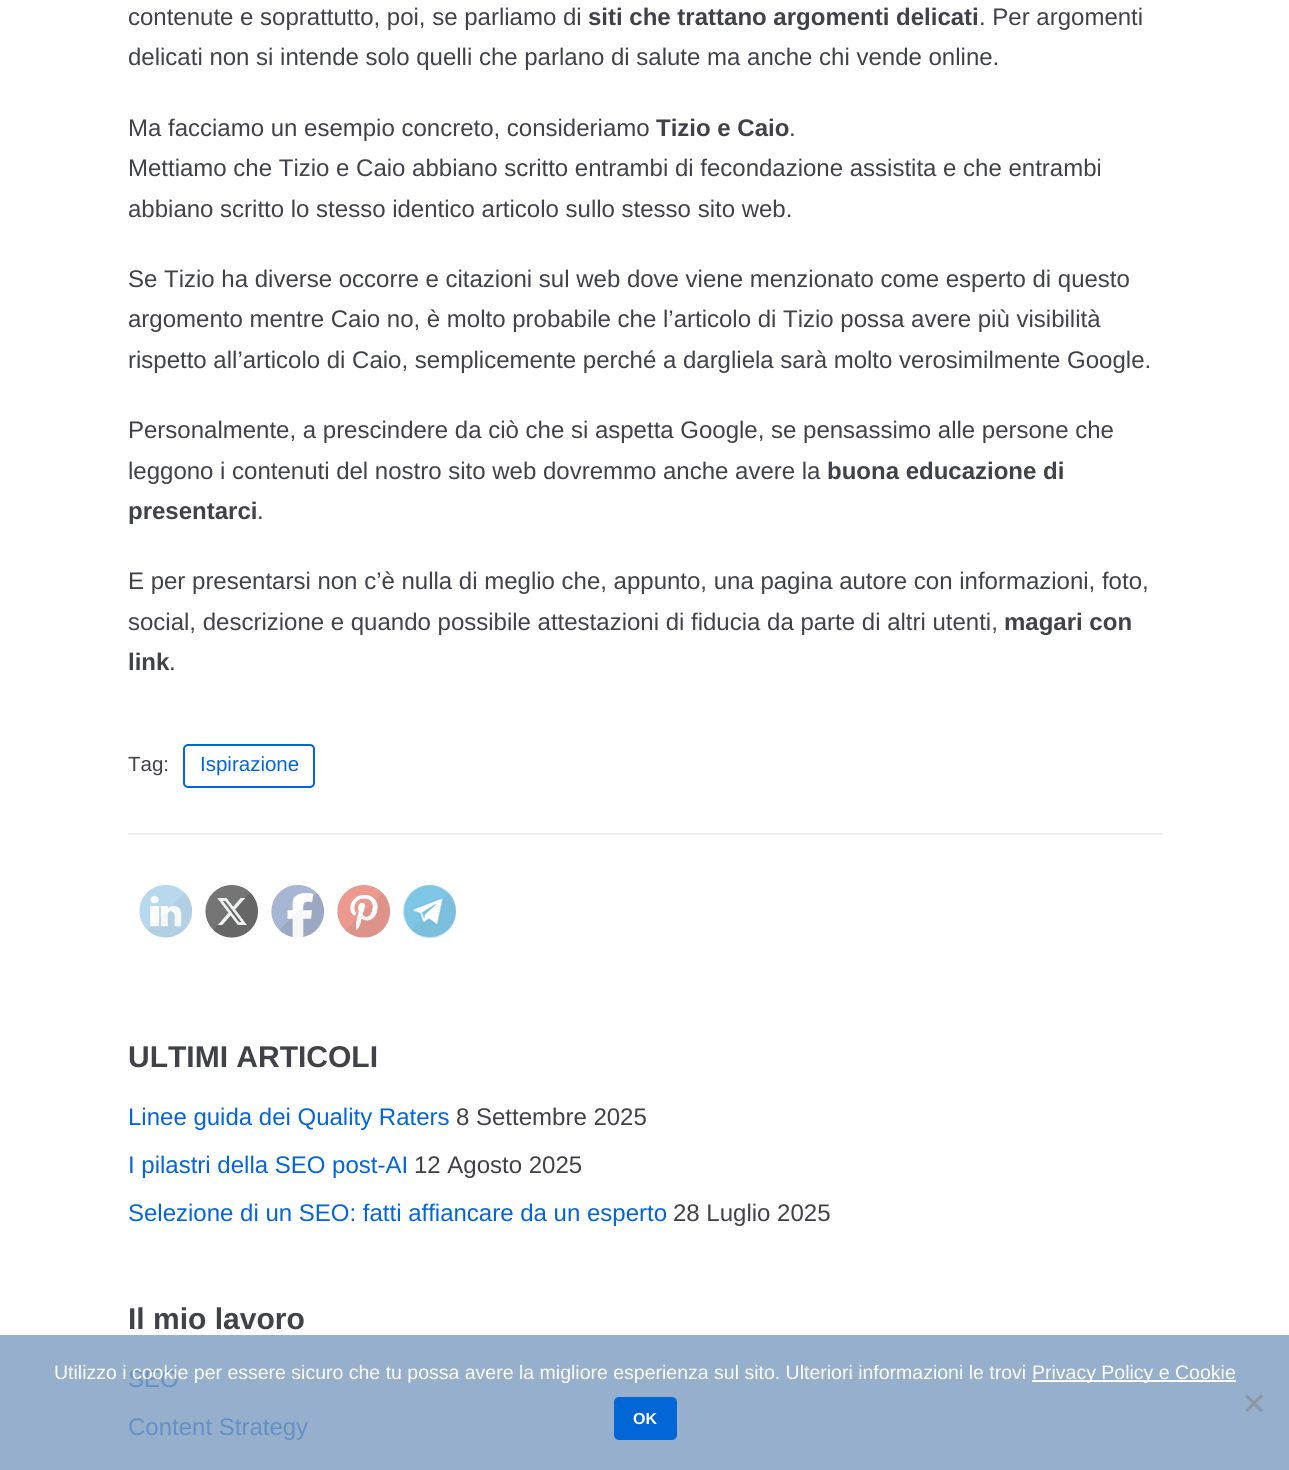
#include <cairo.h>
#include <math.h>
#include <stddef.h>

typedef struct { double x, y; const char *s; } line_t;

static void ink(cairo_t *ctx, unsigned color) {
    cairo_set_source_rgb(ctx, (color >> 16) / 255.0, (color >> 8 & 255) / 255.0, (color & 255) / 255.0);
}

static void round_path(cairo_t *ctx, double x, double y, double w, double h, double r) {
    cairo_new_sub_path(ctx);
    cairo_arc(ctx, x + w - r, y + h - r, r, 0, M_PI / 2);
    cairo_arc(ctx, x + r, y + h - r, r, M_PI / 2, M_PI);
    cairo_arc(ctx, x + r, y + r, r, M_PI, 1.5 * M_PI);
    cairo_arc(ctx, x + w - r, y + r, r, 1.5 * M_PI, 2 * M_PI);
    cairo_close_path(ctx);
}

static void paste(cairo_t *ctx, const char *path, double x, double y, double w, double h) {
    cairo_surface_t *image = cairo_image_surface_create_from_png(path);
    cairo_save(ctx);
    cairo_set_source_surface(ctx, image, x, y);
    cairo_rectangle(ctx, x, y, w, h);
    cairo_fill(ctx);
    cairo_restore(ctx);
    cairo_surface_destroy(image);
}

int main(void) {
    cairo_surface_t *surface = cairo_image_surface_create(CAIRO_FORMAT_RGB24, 1289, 1470);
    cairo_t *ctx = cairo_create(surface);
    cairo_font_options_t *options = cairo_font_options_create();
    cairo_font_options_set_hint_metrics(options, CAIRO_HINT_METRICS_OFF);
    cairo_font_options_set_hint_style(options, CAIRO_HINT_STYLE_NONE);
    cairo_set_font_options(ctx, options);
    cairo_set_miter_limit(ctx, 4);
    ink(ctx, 0xFFFFFF);
    cairo_paint(ctx);
    ink(ctx, 0x96AFCD);
    cairo_rectangle(ctx, 0, 1335, 1289, 135);
    cairo_fill(ctx);
    cairo_select_font_face(ctx, "Liberation Sans", CAIRO_FONT_SLANT_NORMAL, CAIRO_FONT_WEIGHT_NORMAL);
    cairo_set_font_size(ctx, 24);
    ink(ctx, 0x404248);
    cairo_move_to(ctx, 128, 25);
    cairo_show_text(ctx, "contenute e soprattutto, poi, se parliamo di");
    cairo_select_font_face(ctx, "Liberation Sans", CAIRO_FONT_SLANT_NORMAL, CAIRO_FONT_WEIGHT_BOLD);
    cairo_move_to(ctx, 588, 25);
    cairo_show_text(ctx, "siti che trattano argomenti delicati");
    cairo_select_font_face(ctx, "Liberation Sans", CAIRO_FONT_SLANT_NORMAL, CAIRO_FONT_WEIGHT_NORMAL);
    {
        static const line_t items[] = {
            {979, 25, ". Per argomenti"},
            {128, 65, "delicati non si intende solo quelli che parlano di salute ma anche chi vende online."},
            {128, 136, "Ma facciamo un esempio concreto, consideriamo"},
        };
        for (size_t i = 0; i < sizeof items / sizeof *items; i++) {
            cairo_move_to(ctx, items[i].x, items[i].y);
            cairo_show_text(ctx, items[i].s);
        }
    }
    cairo_select_font_face(ctx, "Liberation Sans", CAIRO_FONT_SLANT_NORMAL, CAIRO_FONT_WEIGHT_BOLD);
    cairo_move_to(ctx, 656, 136);
    cairo_show_text(ctx, "Tizio e Caio");
    cairo_select_font_face(ctx, "Liberation Sans", CAIRO_FONT_SLANT_NORMAL, CAIRO_FONT_WEIGHT_NORMAL);
    {
        static const line_t items[] = {
            {789, 136, "."},
            {128, 176, "Mettiamo che Tizio e Caio abbiano scritto entrambi di fecondazione assistita e che entrambi"},
            {128, 217, "abbiano scritto lo stesso identico articolo sullo stesso sito web."},
            {128, 287, "Se Tizio ha diverse occorre e citazioni sul web dove viene menzionato come esperto di questo"},
            {128, 327, "argomento mentre Caio no, è molto probabile che l’articolo di Tizio possa avere più visibilità"},
            {128, 368, "rispetto all’articolo di Caio, semplicemente perché a dargliela sarà molto verosimilmente Google."},
            {128, 438, "Personalmente, a prescindere da ciò che si aspetta Google, se pensassimo alle persone che"},
            {128, 479, "leggono i contenuti del nostro sito web dovremmo anche avere la"},
        };
        for (size_t i = 0; i < sizeof items / sizeof *items; i++) {
            cairo_move_to(ctx, items[i].x, items[i].y);
            cairo_show_text(ctx, items[i].s);
        }
    }
    cairo_select_font_face(ctx, "Liberation Sans", CAIRO_FONT_SLANT_NORMAL, CAIRO_FONT_WEIGHT_BOLD);
    cairo_move_to(ctx, 827, 479);
    cairo_show_text(ctx, "buona educazione di");
    cairo_move_to(ctx, 128, 519);
    cairo_show_text(ctx, "presentarci");
    cairo_select_font_face(ctx, "Liberation Sans", CAIRO_FONT_SLANT_NORMAL, CAIRO_FONT_WEIGHT_NORMAL);
    {
        static const line_t items[] = {
            {257, 519, "."},
            {128, 589, "E per presentarsi non c’è nulla di meglio che, appunto, una pagina autore con informazioni, foto,"},
            {128, 630, "social, descrizione e quando possibile attestazioni di fiducia da parte di altri utenti,"},
        };
        for (size_t i = 0; i < sizeof items / sizeof *items; i++) {
            cairo_move_to(ctx, items[i].x, items[i].y);
            cairo_show_text(ctx, items[i].s);
        }
    }
    cairo_select_font_face(ctx, "Liberation Sans", CAIRO_FONT_SLANT_NORMAL, CAIRO_FONT_WEIGHT_BOLD);
    cairo_move_to(ctx, 1004, 630);
    cairo_show_text(ctx, "magari con");
    cairo_move_to(ctx, 128, 670);
    cairo_show_text(ctx, "link");
    cairo_select_font_face(ctx, "Liberation Sans", CAIRO_FONT_SLANT_NORMAL, CAIRO_FONT_WEIGHT_NORMAL);
    cairo_move_to(ctx, 169, 670);
    cairo_show_text(ctx, ".");
    cairo_set_font_size(ctx, 20.5);
    cairo_move_to(ctx, 128, 771);
    cairo_show_text(ctx, "Tag:");
    round_path(ctx, 184, 745, 130, 42, 4);
    ink(ctx, 0x0366D6);
    cairo_stroke(ctx);
    cairo_move_to(ctx, 200, 771);
    cairo_show_text(ctx, "Ispirazione");
    ink(ctx, 0xF0F0F0);
    cairo_rectangle(ctx, 128, 833, 1035, 2);
    cairo_fill(ctx);
    paste(ctx, "media/1.png", 139, 885, 53, 53);
    paste(ctx, "media/2.png", 205, 885, 53, 53);
    paste(ctx, "media/3.png", 271, 885, 53, 53);
    paste(ctx, "media/4.png", 337, 885, 53, 53);
    paste(ctx, "media/5.png", 403, 885, 53, 53);
    cairo_select_font_face(ctx, "Liberation Sans", CAIRO_FONT_SLANT_NORMAL, CAIRO_FONT_WEIGHT_BOLD);
    cairo_set_font_size(ctx, 30);
    ink(ctx, 0x404248);
    cairo_move_to(ctx, 128, 1067);
    cairo_show_text(ctx, "ULTIMI ARTICOLI");
    cairo_select_font_face(ctx, "Liberation Sans", CAIRO_FONT_SLANT_NORMAL, CAIRO_FONT_WEIGHT_NORMAL);
    cairo_set_font_size(ctx, 24);
    ink(ctx, 0x0366D6);
    cairo_move_to(ctx, 128, 1125);
    cairo_show_text(ctx, "Linee guida dei Quality Raters");
    ink(ctx, 0x404248);
    cairo_move_to(ctx, 456, 1125);
    cairo_show_text(ctx, "8 Settembre 2025");
    ink(ctx, 0x0366D6);
    cairo_move_to(ctx, 128, 1173);
    cairo_show_text(ctx, "I pilastri della SEO post-AI");
    ink(ctx, 0x404248);
    cairo_move_to(ctx, 414, 1173);
    cairo_show_text(ctx, "12 Agosto 2025");
    ink(ctx, 0x0366D6);
    cairo_move_to(ctx, 128, 1221);
    cairo_show_text(ctx, "Selezione di un SEO: fatti affiancare da un esperto");
    ink(ctx, 0x404248);
    cairo_move_to(ctx, 673, 1221);
    cairo_show_text(ctx, "28 Luglio 2025");
    cairo_select_font_face(ctx, "Liberation Sans", CAIRO_FONT_SLANT_NORMAL, CAIRO_FONT_WEIGHT_BOLD);
    cairo_set_font_size(ctx, 30);
    cairo_move_to(ctx, 128, 1329);
    cairo_show_text(ctx, "Il mio lavoro");
    cairo_select_font_face(ctx, "Liberation Sans", CAIRO_FONT_SLANT_NORMAL, CAIRO_FONT_WEIGHT_NORMAL);
    cairo_set_font_size(ctx, 24);
    ink(ctx, 0x6490C5);
    cairo_move_to(ctx, 128, 1387);
    cairo_show_text(ctx, "SEO");
    cairo_move_to(ctx, 128, 1435);
    cairo_show_text(ctx, "Content Strategy");
    cairo_set_font_size(ctx, 19.5);
    ink(ctx, 0xFFFFFF);
    cairo_move_to(ctx, 54, 1379);
    cairo_show_text(ctx, "Utilizzo i cookie per essere sicuro che tu possa avere la migliore esperienza sul sito. Ulteriori informazioni le trovi");
    cairo_rectangle(ctx, 1032, 1380, 204, 2);
    cairo_fill(ctx);
    cairo_move_to(ctx, 1032, 1379);
    cairo_show_text(ctx, "Privacy Policy e Cookie");
    ink(ctx, 0x8B98A7);
    cairo_new_path(ctx);
    cairo_move_to(ctx, 1261, 1394);
    cairo_line_to(ctx, 1263, 1396.5);
    cairo_line_to(ctx, 1247, 1412.5);
    cairo_line_to(ctx, 1245, 1410);
    cairo_close_path(ctx);
    cairo_fill(ctx);
    cairo_new_path(ctx);
    cairo_move_to(ctx, 1245, 1396.5);
    cairo_line_to(ctx, 1247, 1394);
    cairo_line_to(ctx, 1263, 1410);
    cairo_line_to(ctx, 1261, 1412.5);
    cairo_close_path(ctx);
    cairo_fill(ctx);
    ink(ctx, 0x0366D6);
    round_path(ctx, 614, 1397, 63, 43, 5);
    cairo_fill(ctx);
    cairo_select_font_face(ctx, "Liberation Sans", CAIRO_FONT_SLANT_NORMAL, CAIRO_FONT_WEIGHT_BOLD);
    cairo_set_font_size(ctx, 16);
    ink(ctx, 0xFFFFFF);
    cairo_move_to(ctx, 633, 1424);
    cairo_show_text(ctx, "OK");
    cairo_surface_write_to_png(surface, "image.png");
    cairo_font_options_destroy(options);
    cairo_destroy(ctx);
    cairo_surface_destroy(surface);
    return 0;
}
